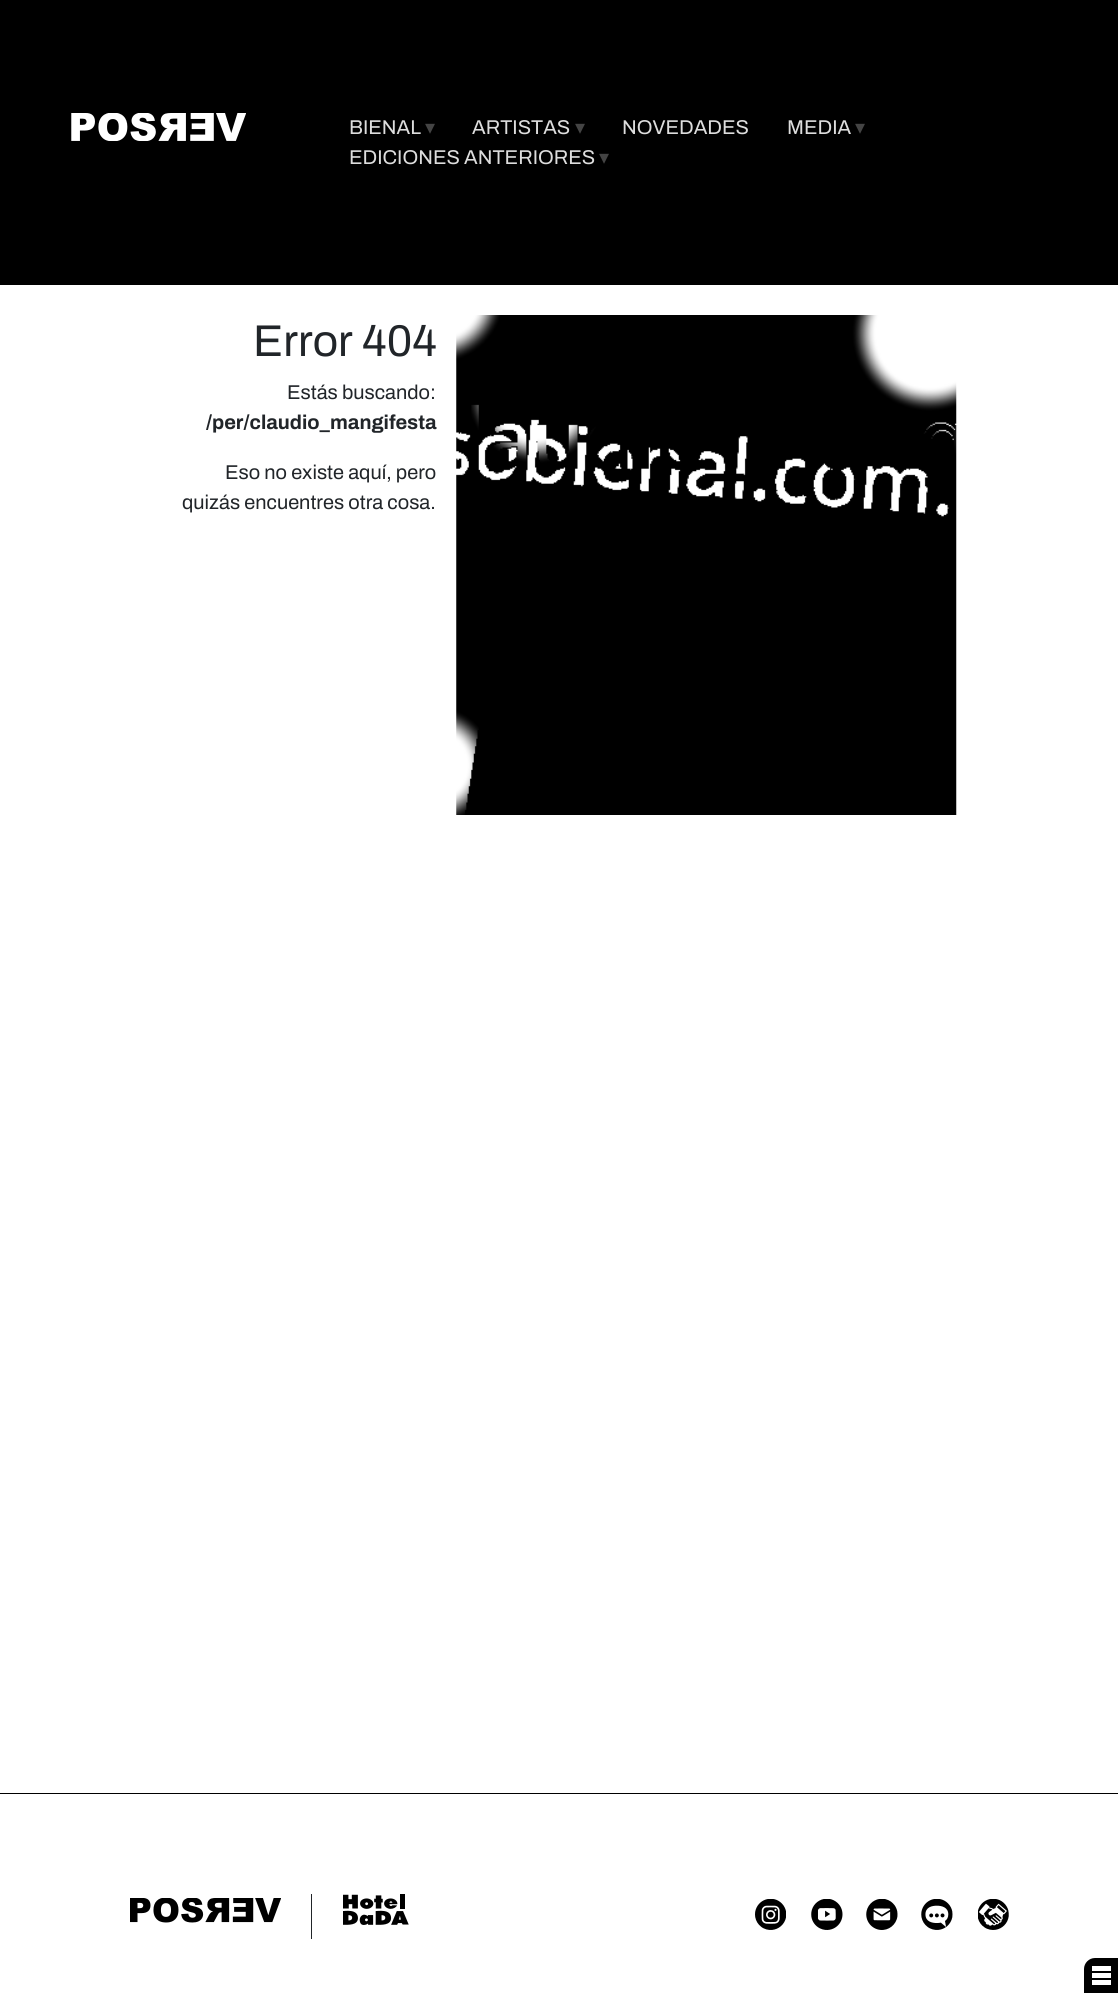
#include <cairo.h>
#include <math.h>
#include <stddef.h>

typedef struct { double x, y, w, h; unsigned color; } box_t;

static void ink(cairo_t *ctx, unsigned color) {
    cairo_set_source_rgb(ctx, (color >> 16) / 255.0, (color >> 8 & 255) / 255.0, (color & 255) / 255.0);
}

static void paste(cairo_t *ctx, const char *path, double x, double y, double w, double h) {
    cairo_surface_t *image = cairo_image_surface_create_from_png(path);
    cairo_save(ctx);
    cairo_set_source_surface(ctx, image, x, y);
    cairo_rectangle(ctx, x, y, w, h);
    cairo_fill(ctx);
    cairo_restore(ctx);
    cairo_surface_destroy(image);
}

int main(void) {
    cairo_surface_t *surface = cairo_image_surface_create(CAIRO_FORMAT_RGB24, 1118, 2001);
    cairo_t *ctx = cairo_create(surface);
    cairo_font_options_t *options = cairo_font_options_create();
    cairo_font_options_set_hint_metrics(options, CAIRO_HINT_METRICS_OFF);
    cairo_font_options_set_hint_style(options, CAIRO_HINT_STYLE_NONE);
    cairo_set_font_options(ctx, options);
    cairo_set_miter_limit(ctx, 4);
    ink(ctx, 0xFFFFFF);
    cairo_paint(ctx);
    ink(ctx, 0x000000);
    cairo_rectangle(ctx, 0, 0, 1118, 285);
    cairo_fill(ctx);
    paste(ctx, "media/1.png", 71, 113, 175, 28);
    cairo_select_font_face(ctx, "Archivo", CAIRO_FONT_SLANT_NORMAL, CAIRO_FONT_WEIGHT_NORMAL);
    cairo_set_font_size(ctx, 20);
    ink(ctx, 0xDDDDDD);
    cairo_move_to(ctx, 349, 134);
    cairo_show_text(ctx, "BIENAL");
    cairo_select_font_face(ctx, "DejaVu Sans", CAIRO_FONT_SLANT_NORMAL, CAIRO_FONT_WEIGHT_NORMAL);
    ink(ctx, 0x444444);
    cairo_move_to(ctx, 425, 134);
    cairo_show_text(ctx, "▾");
    cairo_select_font_face(ctx, "Archivo", CAIRO_FONT_SLANT_NORMAL, CAIRO_FONT_WEIGHT_NORMAL);
    ink(ctx, 0xDDDDDD);
    cairo_move_to(ctx, 472, 134);
    cairo_show_text(ctx, "ARTISTAS");
    cairo_select_font_face(ctx, "DejaVu Sans", CAIRO_FONT_SLANT_NORMAL, CAIRO_FONT_WEIGHT_NORMAL);
    ink(ctx, 0x444444);
    cairo_move_to(ctx, 575, 134);
    cairo_show_text(ctx, "▾");
    cairo_select_font_face(ctx, "Archivo", CAIRO_FONT_SLANT_NORMAL, CAIRO_FONT_WEIGHT_NORMAL);
    ink(ctx, 0xDDDDDD);
    cairo_move_to(ctx, 622, 134);
    cairo_show_text(ctx, "NOVEDADES");
    cairo_move_to(ctx, 787, 134);
    cairo_show_text(ctx, "MEDIA");
    cairo_select_font_face(ctx, "DejaVu Sans", CAIRO_FONT_SLANT_NORMAL, CAIRO_FONT_WEIGHT_NORMAL);
    ink(ctx, 0x444444);
    cairo_move_to(ctx, 855, 134);
    cairo_show_text(ctx, "▾");
    cairo_select_font_face(ctx, "Archivo", CAIRO_FONT_SLANT_NORMAL, CAIRO_FONT_WEIGHT_NORMAL);
    ink(ctx, 0xDDDDDD);
    cairo_move_to(ctx, 349, 164);
    cairo_show_text(ctx, "EDICIONES ANTERIORES");
    cairo_select_font_face(ctx, "DejaVu Sans", CAIRO_FONT_SLANT_NORMAL, CAIRO_FONT_WEIGHT_NORMAL);
    ink(ctx, 0x444444);
    cairo_move_to(ctx, 599, 164);
    cairo_show_text(ctx, "▾");
    cairo_select_font_face(ctx, "Archivo", CAIRO_FONT_SLANT_NORMAL, CAIRO_FONT_WEIGHT_NORMAL);
    cairo_set_font_size(ctx, 44.5);
    ink(ctx, 0x212529);
    cairo_move_to(ctx, 253, 356);
    cairo_show_text(ctx, "Error 404");
    cairo_set_font_size(ctx, 20);
    cairo_move_to(ctx, 287, 399);
    cairo_show_text(ctx, "Estás buscando:");
    cairo_select_font_face(ctx, "Archivo", CAIRO_FONT_SLANT_NORMAL, CAIRO_FONT_WEIGHT_BOLD);
    cairo_move_to(ctx, 206, 429);
    cairo_show_text(ctx, "/per/claudio_mangifesta");
    cairo_select_font_face(ctx, "Archivo", CAIRO_FONT_SLANT_NORMAL, CAIRO_FONT_WEIGHT_NORMAL);
    cairo_move_to(ctx, 225, 479);
    cairo_show_text(ctx, "Eso no existe aquí, pero");
    cairo_move_to(ctx, 182, 509);
    cairo_show_text(ctx, "quizás encuentres otra cosa.");
    paste(ctx, "media/2.png", 456, 315, 501, 500);
    ink(ctx, 0x000000);
    cairo_rectangle(ctx, 0, 1793, 1118, 1);
    cairo_fill(ctx);
    paste(ctx, "media/3.png", 130, 1898, 151, 25);
    ink(ctx, 0x212529);
    cairo_rectangle(ctx, 311, 1894, 1, 45);
    cairo_fill(ctx);
    paste(ctx, "media/4.png", 343, 1894, 66, 31);
    paste(ctx, "media/5.png", 755, 1899, 31, 31);
    paste(ctx, "media/6.png", 811, 1899, 32, 31);
    paste(ctx, "media/7.png", 866, 1899, 32, 31);
    paste(ctx, "media/8.png", 921, 1899, 32, 31);
    paste(ctx, "media/9.png", 978, 1899, 31, 31);
    ink(ctx, 0x000000);
    cairo_new_path(ctx);
    cairo_move_to(ctx, 1095, 1958);
    cairo_line_to(ctx, 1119, 1958);
    cairo_line_to(ctx, 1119, 1993);
    cairo_line_to(ctx, 1084, 1993);
    cairo_line_to(ctx, 1084, 1969);
    cairo_curve_to(ctx, 1084, 1963, 1089, 1958, 1095, 1958);
    cairo_close_path(ctx);
    cairo_fill(ctx);
    {
        static const box_t items[] = {
            {1092, 1966, 19, 5, 0xFFFFFF},
            {1092, 1973, 19, 5, 0xFFFFFF},
            {1092, 1980, 19, 5, 0xFFFFFF},
        };
        for (size_t i = 0; i < sizeof items / sizeof *items; i++) {
            ink(ctx, items[i].color);
            cairo_rectangle(ctx, items[i].x, items[i].y, items[i].w, items[i].h);
            cairo_fill(ctx);
        }
    }
    cairo_surface_write_to_png(surface, "image.png");
    cairo_font_options_destroy(options);
    cairo_destroy(ctx);
    cairo_surface_destroy(surface);
    return 0;
}
